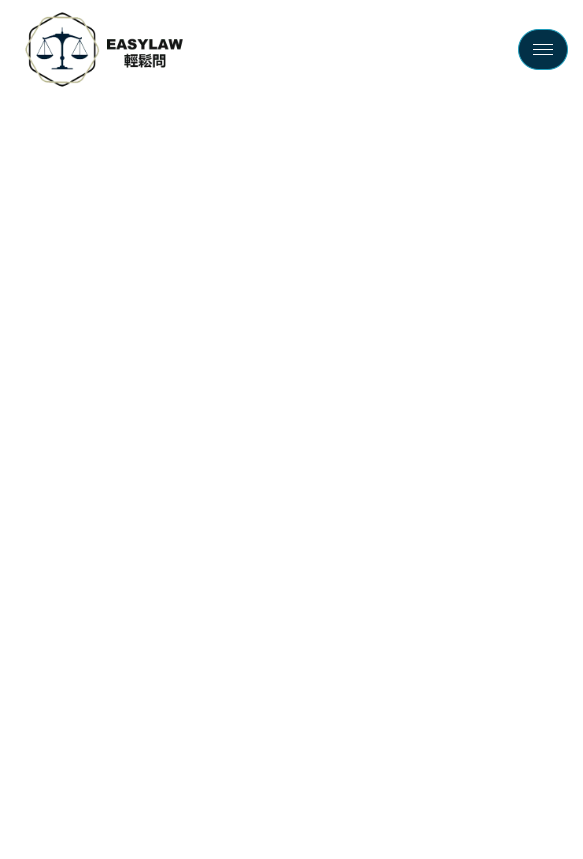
#include <cairo.h>
#include <math.h>
#include <stddef.h>

typedef struct { double x, y, w, h; unsigned color; } box_t;

static void ink(cairo_t *ctx, unsigned color) {
    cairo_set_source_rgb(ctx, (color >> 16) / 255.0, (color >> 8 & 255) / 255.0, (color & 255) / 255.0);
}

static void round_path(cairo_t *ctx, double x, double y, double w, double h, double r) {
    cairo_new_sub_path(ctx);
    cairo_arc(ctx, x + w - r, y + h - r, r, 0, M_PI / 2);
    cairo_arc(ctx, x + r, y + h - r, r, M_PI / 2, M_PI);
    cairo_arc(ctx, x + r, y + r, r, M_PI, 1.5 * M_PI);
    cairo_arc(ctx, x + w - r, y + r, r, 1.5 * M_PI, 2 * M_PI);
    cairo_close_path(ctx);
}

static void paste(cairo_t *ctx, const char *path, double x, double y, double w, double h) {
    cairo_surface_t *image = cairo_image_surface_create_from_png(path);
    cairo_save(ctx);
    cairo_set_source_surface(ctx, image, x, y);
    cairo_rectangle(ctx, x, y, w, h);
    cairo_fill(ctx);
    cairo_restore(ctx);
    cairo_surface_destroy(image);
}

int main(void) {
    cairo_surface_t *surface = cairo_image_surface_create(CAIRO_FORMAT_RGB24, 583, 859);
    cairo_t *ctx = cairo_create(surface);
    cairo_font_options_t *options = cairo_font_options_create();
    cairo_font_options_set_hint_metrics(options, CAIRO_HINT_METRICS_OFF);
    cairo_font_options_set_hint_style(options, CAIRO_HINT_STYLE_NONE);
    cairo_set_font_options(ctx, options);
    cairo_set_miter_limit(ctx, 4);
    ink(ctx, 0xFFFFFF);
    cairo_paint(ctx);
    paste(ctx, "media/1.png", 25, 12, 158, 75);
    ink(ctx, 0x023047);
    round_path(ctx, 518.5, 29.5, 49, 40, 20);
    cairo_fill_preserve(ctx);
    ink(ctx, 0x219EBC);
    cairo_set_line_width(ctx, 1);
    cairo_stroke(ctx);
    {
        static const box_t items[] = {
            {533, 44, 20, 1, 0xFFFFFF},
            {533, 49, 20, 1, 0xFFFFFF},
            {533, 54, 20, 1, 0xFFFFFF},
        };
        for (size_t i = 0; i < sizeof items / sizeof *items; i++) {
            ink(ctx, items[i].color);
            cairo_rectangle(ctx, items[i].x, items[i].y, items[i].w, items[i].h);
            cairo_fill(ctx);
        }
    }
    cairo_surface_write_to_png(surface, "image.png");
    cairo_font_options_destroy(options);
    cairo_destroy(ctx);
    cairo_surface_destroy(surface);
    return 0;
}
